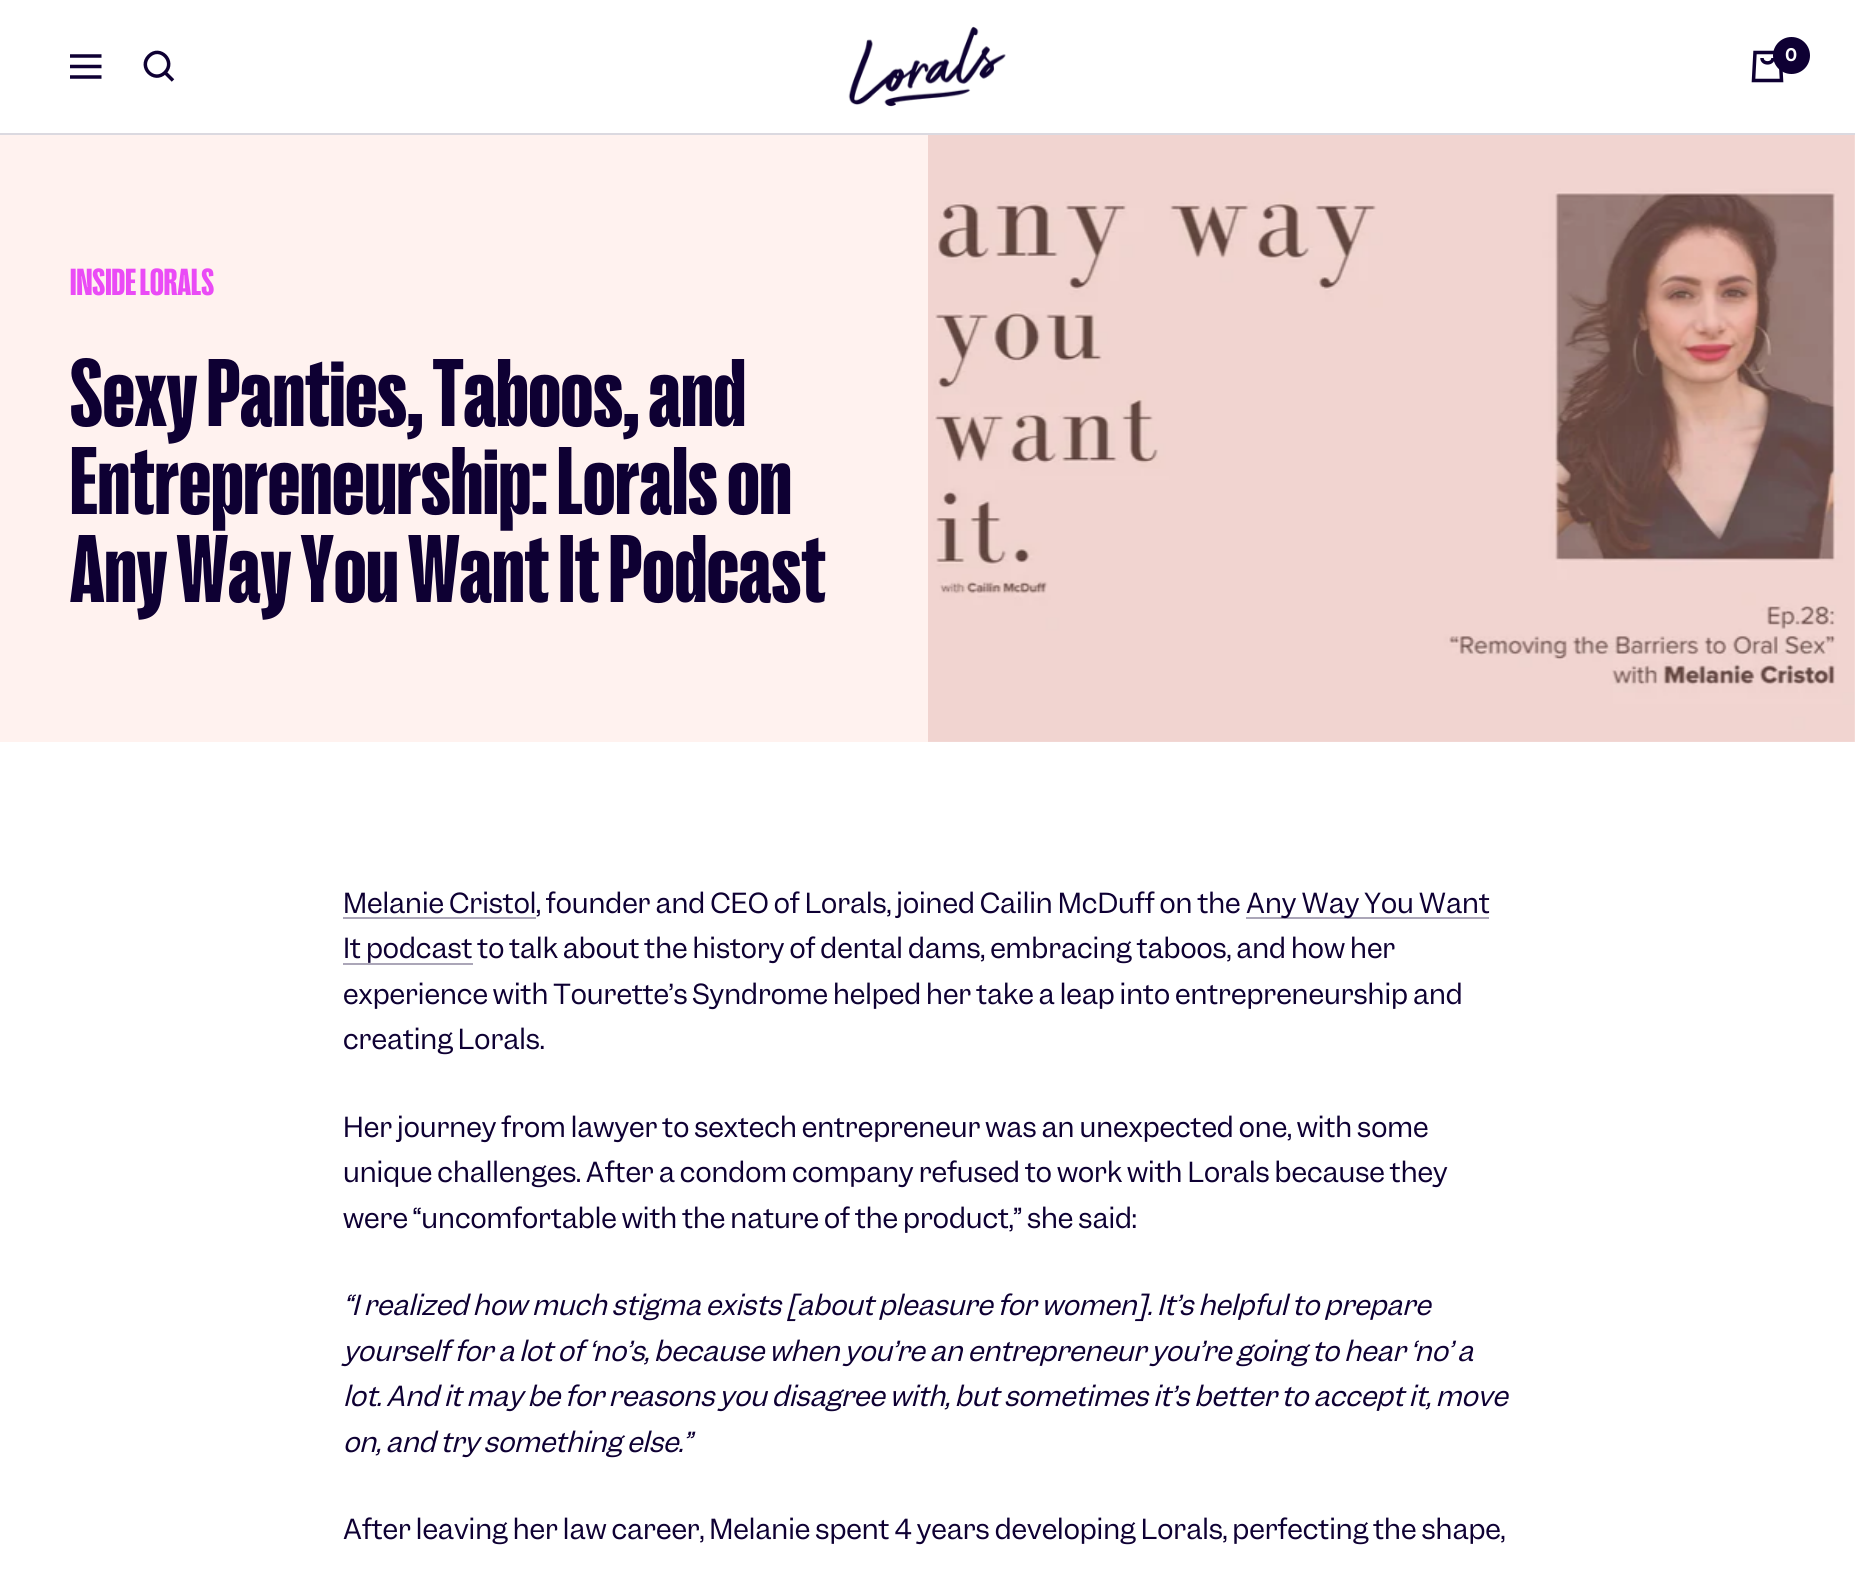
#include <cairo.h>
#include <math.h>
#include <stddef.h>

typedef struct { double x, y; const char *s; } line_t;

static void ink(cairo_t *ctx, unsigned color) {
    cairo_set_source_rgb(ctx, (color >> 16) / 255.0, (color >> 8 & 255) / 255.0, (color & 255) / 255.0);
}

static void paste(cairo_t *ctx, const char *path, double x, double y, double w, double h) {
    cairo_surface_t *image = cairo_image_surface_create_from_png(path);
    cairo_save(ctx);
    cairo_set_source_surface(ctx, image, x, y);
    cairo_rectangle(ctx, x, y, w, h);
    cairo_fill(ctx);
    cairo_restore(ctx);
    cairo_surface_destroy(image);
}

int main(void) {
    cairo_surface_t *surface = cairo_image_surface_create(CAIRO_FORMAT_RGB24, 1855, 1576);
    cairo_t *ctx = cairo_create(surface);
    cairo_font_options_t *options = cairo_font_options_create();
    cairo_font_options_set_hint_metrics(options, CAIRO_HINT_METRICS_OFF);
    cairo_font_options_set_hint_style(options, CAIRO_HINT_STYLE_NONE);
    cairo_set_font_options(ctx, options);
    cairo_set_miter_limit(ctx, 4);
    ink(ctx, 0xFFFFFF);
    cairo_paint(ctx);
    ink(ctx, 0xDBD9E0);
    cairo_rectangle(ctx, 0, 133, 1855, 2);
    cairo_fill(ctx);
    cairo_new_path(ctx);
    cairo_move_to(ctx, 70, 56);
    cairo_line_to(ctx, 101.5, 56);
    cairo_move_to(ctx, 70, 77);
    cairo_line_to(ctx, 101.5, 77);
    cairo_close_path(ctx);
    cairo_move_to(ctx, 70, 66.5);
    cairo_line_to(ctx, 101.5, 66.5);
    cairo_close_path(ctx);
    ink(ctx, 0x0E0033);
    cairo_set_line_width(ctx, 3.5);
    cairo_stroke(ctx);
    cairo_new_path(ctx);
    cairo_move_to(ctx, 165, 72.5);
    cairo_curve_to(ctx, 176, 61.5, 160, 45, 149, 56);
    cairo_curve_to(ctx, 138, 67, 154, 83.5, 165, 72.5);
    cairo_close_path(ctx);
    cairo_move_to(ctx, 165, 72.5);
    cairo_line_to(ctx, 173, 80.5);
    cairo_stroke(ctx);
    paste(ctx, "media/1.png", 848, 26, 158, 81);
    cairo_new_path(ctx);
    cairo_move_to(ctx, 1755, 52.5);
    cairo_line_to(ctx, 1780, 52.5);
    cairo_line_to(ctx, 1781.5, 80.5);
    cairo_line_to(ctx, 1753.5, 80.5);
    cairo_close_path(ctx);
    cairo_move_to(ctx, 1762, 58);
    cairo_curve_to(ctx, 1762, 64.5, 1773, 64.5, 1773, 58);
    cairo_stroke(ctx);
    cairo_arc(ctx, 1791.5, 55.5, 18.5, 0, 2 * M_PI);
    cairo_fill(ctx);
    cairo_select_font_face(ctx, "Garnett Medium", CAIRO_FONT_SLANT_NORMAL, CAIRO_FONT_WEIGHT_BOLD);
    cairo_set_font_size(ctx, 16);
    ink(ctx, 0xFFFFFF);
    cairo_move_to(ctx, 1785, 61);
    cairo_show_text(ctx, "0");
    ink(ctx, 0xFFF2EF);
    cairo_rectangle(ctx, 0, 135, 1855, 607);
    cairo_fill(ctx);
    cairo_select_font_face(ctx, "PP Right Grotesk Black", CAIRO_FONT_SLANT_NORMAL, CAIRO_FONT_WEIGHT_NORMAL);
    cairo_set_font_size(ctx, 38.5);
    ink(ctx, 0xEA4BF6);
    cairo_move_to(ctx, 70, 295);
    cairo_show_text(ctx, "INSIDE LORALS");
    cairo_set_font_size(ctx, 98);
    ink(ctx, 0x0E0033);
    {
        static const line_t items[] = {
            {70, 426, "Sexy Panties, Taboos, and"},
            {70, 514, "Entrepreneurship: Lorals on"},
            {70, 602, "Any Way You Want It Podcast"},
        };
        for (size_t i = 0; i < sizeof items / sizeof *items; i++) {
            cairo_move_to(ctx, items[i].x, items[i].y);
            cairo_show_text(ctx, items[i].s);
        }
    }
    paste(ctx, "media/2.png", 928, 135, 927, 607);
    ink(ctx, 0xABA6B8);
    cairo_rectangle(ctx, 343, 917, 193, 2);
    cairo_fill(ctx);
    cairo_select_font_face(ctx, "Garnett", CAIRO_FONT_SLANT_NORMAL, CAIRO_FONT_WEIGHT_NORMAL);
    cairo_set_font_size(ctx, 26.25);
    ink(ctx, 0x0E0033);
    cairo_move_to(ctx, 343, 913);
    cairo_show_text(ctx, "Melanie Cristol, founder and CEO of Lorals, joined Cailin McDuff on the");
    ink(ctx, 0xABA6B8);
    cairo_rectangle(ctx, 1246, 917, 243, 2);
    cairo_fill(ctx);
    ink(ctx, 0x0E0033);
    cairo_move_to(ctx, 1246, 913);
    cairo_show_text(ctx, "Any Way You Want");
    ink(ctx, 0xABA6B8);
    cairo_rectangle(ctx, 343, 963, 130, 2);
    cairo_fill(ctx);
    ink(ctx, 0x0E0033);
    {
        static const line_t items[] = {
            {343, 958, "It podcast to talk about the history of dental dams, embracing taboos, and how her"},
            {343, 1004, "experience with Tourette’s Syndrome helped her take a leap into entrepreneurship and"},
            {343, 1049, "creating Lorals."},
            {343, 1137, "Her journey from lawyer to sextech entrepreneur was an unexpected one, with some"},
            {343, 1182, "unique challenges. After a condom company refused to work with Lorals because they"},
            {343, 1228, "were “uncomfortable with the nature of the product,” she said:"},
        };
        for (size_t i = 0; i < sizeof items / sizeof *items; i++) {
            cairo_move_to(ctx, items[i].x, items[i].y);
            cairo_show_text(ctx, items[i].s);
        }
    }
    cairo_select_font_face(ctx, "Garnett", CAIRO_FONT_SLANT_ITALIC, CAIRO_FONT_WEIGHT_NORMAL);
    {
        static const line_t items[] = {
            {343, 1315, "“I realized how much stigma exists [about pleasure for women]. It’s helpful to prepare"},
            {343, 1361, "yourself for a lot of ‘no’s, because when you’re an entrepreneur you’re going to hear ‘no’ a"},
            {343, 1406, "lot. And it may be for reasons you disagree with, but sometimes it’s better to accept it, move"},
            {343, 1452, "on, and try something else.”"},
        };
        for (size_t i = 0; i < sizeof items / sizeof *items; i++) {
            cairo_move_to(ctx, items[i].x, items[i].y);
            cairo_show_text(ctx, items[i].s);
        }
    }
    cairo_select_font_face(ctx, "Garnett", CAIRO_FONT_SLANT_NORMAL, CAIRO_FONT_WEIGHT_NORMAL);
    cairo_move_to(ctx, 343, 1539);
    cairo_show_text(ctx, "After leaving her law career, Melanie spent 4 years developing Lorals, perfecting the shape,");
    cairo_surface_write_to_png(surface, "image.png");
    cairo_font_options_destroy(options);
    cairo_destroy(ctx);
    cairo_surface_destroy(surface);
    return 0;
}
